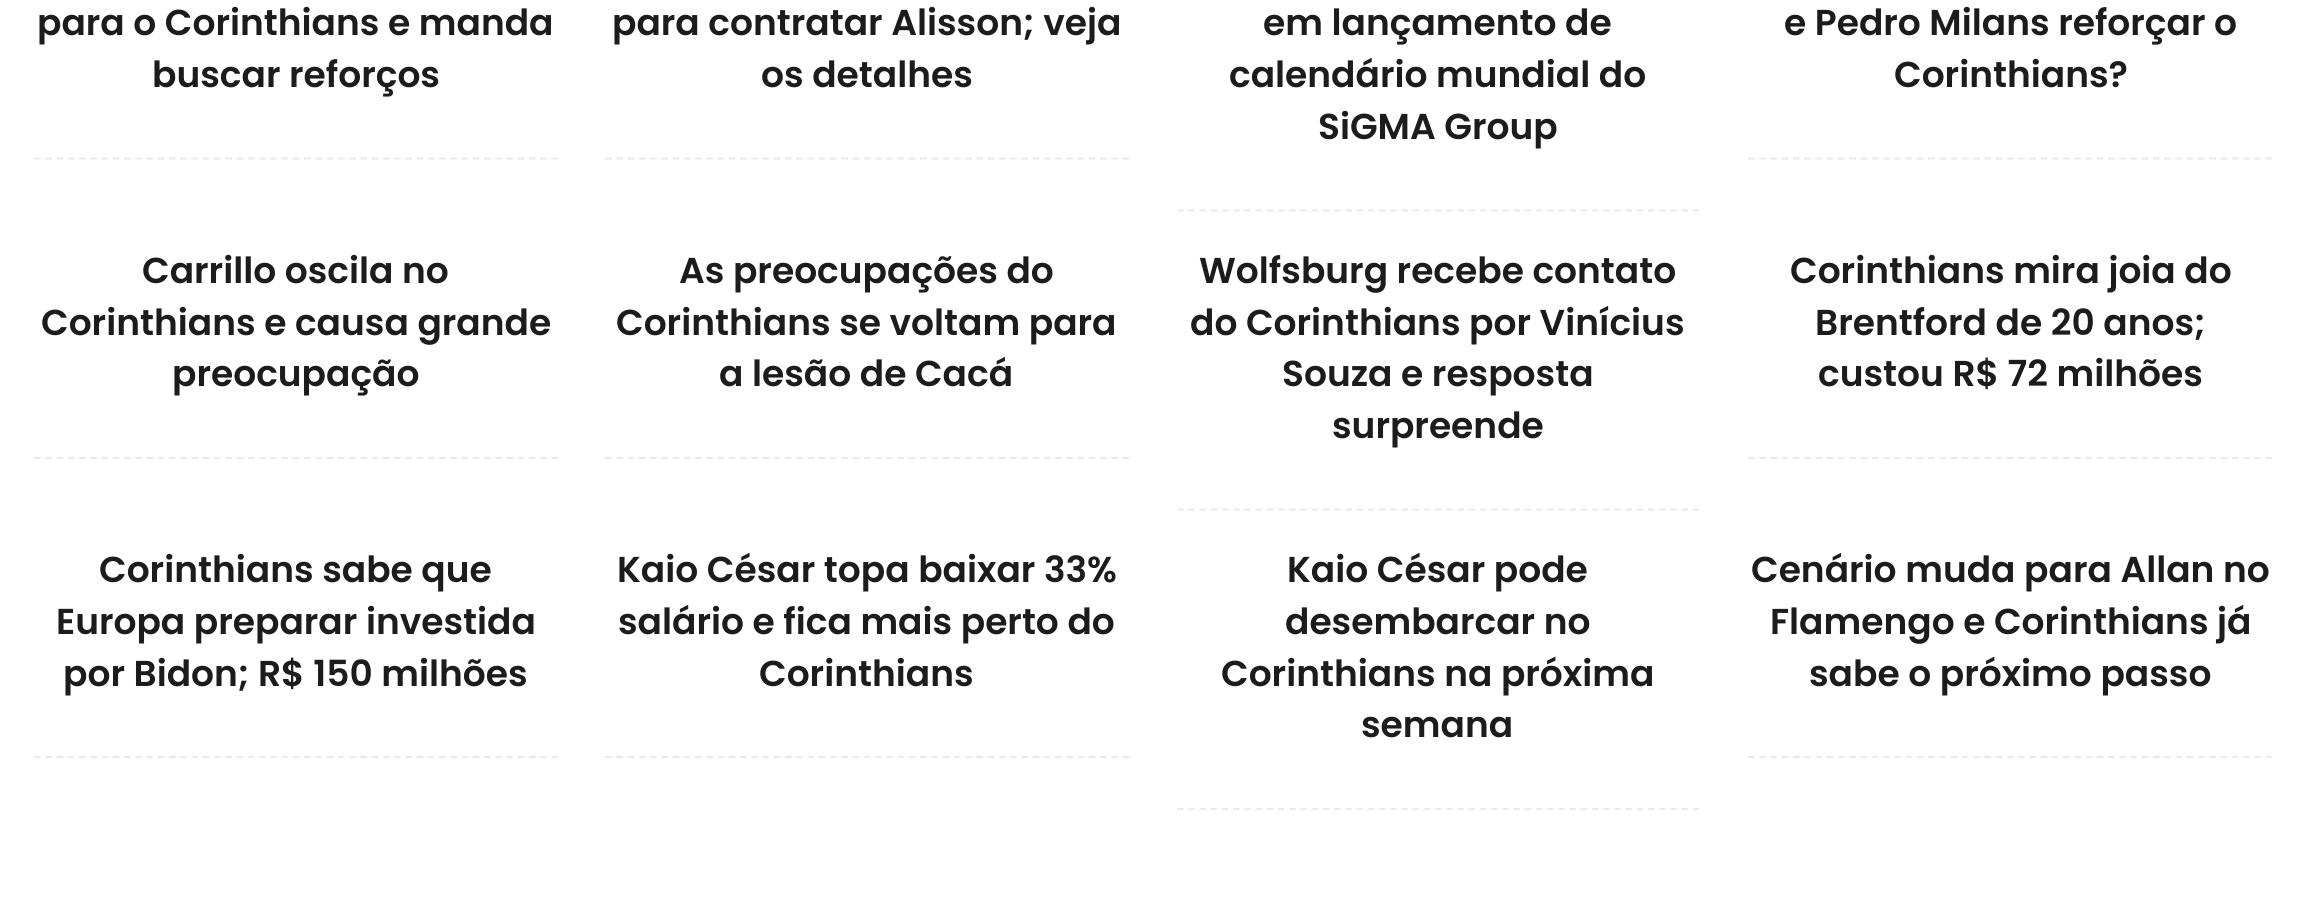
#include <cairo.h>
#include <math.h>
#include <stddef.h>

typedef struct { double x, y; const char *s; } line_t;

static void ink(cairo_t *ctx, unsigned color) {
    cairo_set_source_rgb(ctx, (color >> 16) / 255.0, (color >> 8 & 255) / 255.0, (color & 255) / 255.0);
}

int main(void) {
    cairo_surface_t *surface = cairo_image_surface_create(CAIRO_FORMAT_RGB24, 2306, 913);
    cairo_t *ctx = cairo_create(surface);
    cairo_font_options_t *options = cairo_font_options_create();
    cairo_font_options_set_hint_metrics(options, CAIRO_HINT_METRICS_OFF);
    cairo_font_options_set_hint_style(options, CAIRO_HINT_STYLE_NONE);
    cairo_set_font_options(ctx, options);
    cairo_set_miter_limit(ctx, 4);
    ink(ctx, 0xFFFFFF);
    cairo_paint(ctx);
    cairo_new_path(ctx);
    cairo_move_to(ctx, 34, 158.5);
    cairo_line_to(ctx, 558, 158.5);
    ink(ctx, 0xEBEBEB);
    cairo_set_line_width(ctx, 2.2);
    cairo_set_dash(ctx, (double[]){6.75, 4.5}, 2, 0);
    cairo_stroke(ctx);
    cairo_select_font_face(ctx, "Poppins SemiBold", CAIRO_FONT_SLANT_NORMAL, CAIRO_FONT_WEIGHT_NORMAL);
    cairo_set_font_size(ctx, 36);
    ink(ctx, 0x1C1C1C);
    cairo_move_to(ctx, 37, 35);
    cairo_show_text(ctx, "para o Corinthians e manda");
    cairo_move_to(ctx, 152, 87);
    cairo_show_text(ctx, "buscar reforços");
    cairo_new_path(ctx);
    cairo_move_to(ctx, 605, 158.5);
    cairo_line_to(ctx, 1129.5, 158.5);
    ink(ctx, 0xEBEBEB);
    cairo_stroke(ctx);
    ink(ctx, 0x1C1C1C);
    cairo_move_to(ctx, 612, 35);
    cairo_show_text(ctx, "para contratar Alisson; veja");
    cairo_move_to(ctx, 761, 87);
    cairo_show_text(ctx, "os detalhes");
    cairo_new_path(ctx);
    cairo_move_to(ctx, 1177, 210.5);
    cairo_line_to(ctx, 1699, 210.5);
    ink(ctx, 0xEBEBEB);
    cairo_set_dash(ctx, (double[]){6.75, 4.46}, 2, 0);
    cairo_stroke(ctx);
    ink(ctx, 0x1C1C1C);
    {
        static const line_t items[] = {
            {1263, 35, "em lançamento de"},
            {1229, 87, "calendário mundial do"},
            {1318, 139, "SiGMA Group"},
        };
        for (size_t i = 0; i < sizeof items / sizeof *items; i++) {
            cairo_move_to(ctx, items[i].x, items[i].y);
            cairo_show_text(ctx, items[i].s);
        }
    }
    cairo_new_path(ctx);
    cairo_move_to(ctx, 1748, 158.5);
    cairo_line_to(ctx, 2272.5, 158.5);
    ink(ctx, 0xEBEBEB);
    cairo_set_dash(ctx, (double[]){6.75, 4.5}, 2, 0);
    cairo_stroke(ctx);
    ink(ctx, 0x1C1C1C);
    cairo_move_to(ctx, 1784, 35);
    cairo_show_text(ctx, "e Pedro Milans reforçar o");
    cairo_move_to(ctx, 1894, 87);
    cairo_show_text(ctx, "Corinthians?");
    cairo_new_path(ctx);
    cairo_move_to(ctx, 34, 458);
    cairo_line_to(ctx, 558, 458);
    ink(ctx, 0xEBEBEB);
    cairo_stroke(ctx);
    ink(ctx, 0x1C1C1C);
    {
        static const line_t items[] = {
            {142, 283, "Carrillo oscila no"},
            {41, 335, "Corinthians e causa grande"},
            {172, 386, "preocupação"},
        };
        for (size_t i = 0; i < sizeof items / sizeof *items; i++) {
            cairo_move_to(ctx, items[i].x, items[i].y);
            cairo_show_text(ctx, items[i].s);
        }
    }
    cairo_new_path(ctx);
    cairo_move_to(ctx, 605, 458);
    cairo_line_to(ctx, 1129.5, 458);
    ink(ctx, 0xEBEBEB);
    cairo_stroke(ctx);
    ink(ctx, 0x1C1C1C);
    {
        static const line_t items[] = {
            {679, 283, "As preocupações do"},
            {616, 335, "Corinthians se voltam para"},
            {719, 386, "a lesão de Cacá"},
        };
        for (size_t i = 0; i < sizeof items / sizeof *items; i++) {
            cairo_move_to(ctx, items[i].x, items[i].y);
            cairo_show_text(ctx, items[i].s);
        }
    }
    cairo_new_path(ctx);
    cairo_move_to(ctx, 1177, 509.5);
    cairo_line_to(ctx, 1699, 509.5);
    ink(ctx, 0xEBEBEB);
    cairo_set_dash(ctx, (double[]){6.75, 4.46}, 2, 0);
    cairo_stroke(ctx);
    ink(ctx, 0x1C1C1C);
    {
        static const line_t items[] = {
            {1199, 283, "Wolfsburg recebe contato"},
            {1190, 335, "do Corinthians por Vinícius"},
            {1282, 386, "Souza e resposta"},
            {1332, 438, "surpreende"},
        };
        for (size_t i = 0; i < sizeof items / sizeof *items; i++) {
            cairo_move_to(ctx, items[i].x, items[i].y);
            cairo_show_text(ctx, items[i].s);
        }
    }
    cairo_new_path(ctx);
    cairo_move_to(ctx, 1748, 458);
    cairo_line_to(ctx, 2272.5, 458);
    ink(ctx, 0xEBEBEB);
    cairo_set_dash(ctx, (double[]){6.75, 4.5}, 2, 0);
    cairo_stroke(ctx);
    ink(ctx, 0x1C1C1C);
    {
        static const line_t items[] = {
            {1790, 283, "Corinthians mira joia do"},
            {1815, 335, "Brentford de 20 anos;"},
            {1818, 386, "custou R$ 72 milhões"},
        };
        for (size_t i = 0; i < sizeof items / sizeof *items; i++) {
            cairo_move_to(ctx, items[i].x, items[i].y);
            cairo_show_text(ctx, items[i].s);
        }
    }
    cairo_new_path(ctx);
    cairo_move_to(ctx, 34, 757);
    cairo_line_to(ctx, 558, 757);
    ink(ctx, 0xEBEBEB);
    cairo_stroke(ctx);
    ink(ctx, 0x1C1C1C);
    {
        static const line_t items[] = {
            {99, 582, "Corinthians sabe que"},
            {56, 634, "Europa preparar investida"},
            {63, 686, "por Bidon; R$ 150 milhões"},
        };
        for (size_t i = 0; i < sizeof items / sizeof *items; i++) {
            cairo_move_to(ctx, items[i].x, items[i].y);
            cairo_show_text(ctx, items[i].s);
        }
    }
    cairo_new_path(ctx);
    cairo_move_to(ctx, 605, 757);
    cairo_line_to(ctx, 1129.5, 757);
    ink(ctx, 0xEBEBEB);
    cairo_stroke(ctx);
    ink(ctx, 0x1C1C1C);
    {
        static const line_t items[] = {
            {617, 582, "Kaio César topa baixar 33%"},
            {618, 634, "salário e fica mais perto do"},
            {759, 686, "Corinthians"},
        };
        for (size_t i = 0; i < sizeof items / sizeof *items; i++) {
            cairo_move_to(ctx, items[i].x, items[i].y);
            cairo_show_text(ctx, items[i].s);
        }
    }
    cairo_new_path(ctx);
    cairo_move_to(ctx, 1177, 809);
    cairo_line_to(ctx, 1699, 809);
    ink(ctx, 0xEBEBEB);
    cairo_set_dash(ctx, (double[]){6.75, 4.46}, 2, 0);
    cairo_stroke(ctx);
    ink(ctx, 0x1C1C1C);
    {
        static const line_t items[] = {
            {1287, 582, "Kaio César pode"},
            {1285, 634, "desembarcar no"},
            {1221, 686, "Corinthians na próxima"},
            {1361, 737, "semana"},
        };
        for (size_t i = 0; i < sizeof items / sizeof *items; i++) {
            cairo_move_to(ctx, items[i].x, items[i].y);
            cairo_show_text(ctx, items[i].s);
        }
    }
    cairo_new_path(ctx);
    cairo_move_to(ctx, 1748, 757);
    cairo_line_to(ctx, 2272.5, 757);
    ink(ctx, 0xEBEBEB);
    cairo_set_dash(ctx, (double[]){6.75, 4.5}, 2, 0);
    cairo_stroke(ctx);
    ink(ctx, 0x1C1C1C);
    {
        static const line_t items[] = {
            {1751, 582, "Cenário muda para Allan no"},
            {1770, 634, "Flamengo e Corinthians já"},
            {1809, 686, "sabe o próximo passo"},
        };
        for (size_t i = 0; i < sizeof items / sizeof *items; i++) {
            cairo_move_to(ctx, items[i].x, items[i].y);
            cairo_show_text(ctx, items[i].s);
        }
    }
    cairo_surface_write_to_png(surface, "image.png");
    cairo_font_options_destroy(options);
    cairo_destroy(ctx);
    cairo_surface_destroy(surface);
    return 0;
}
